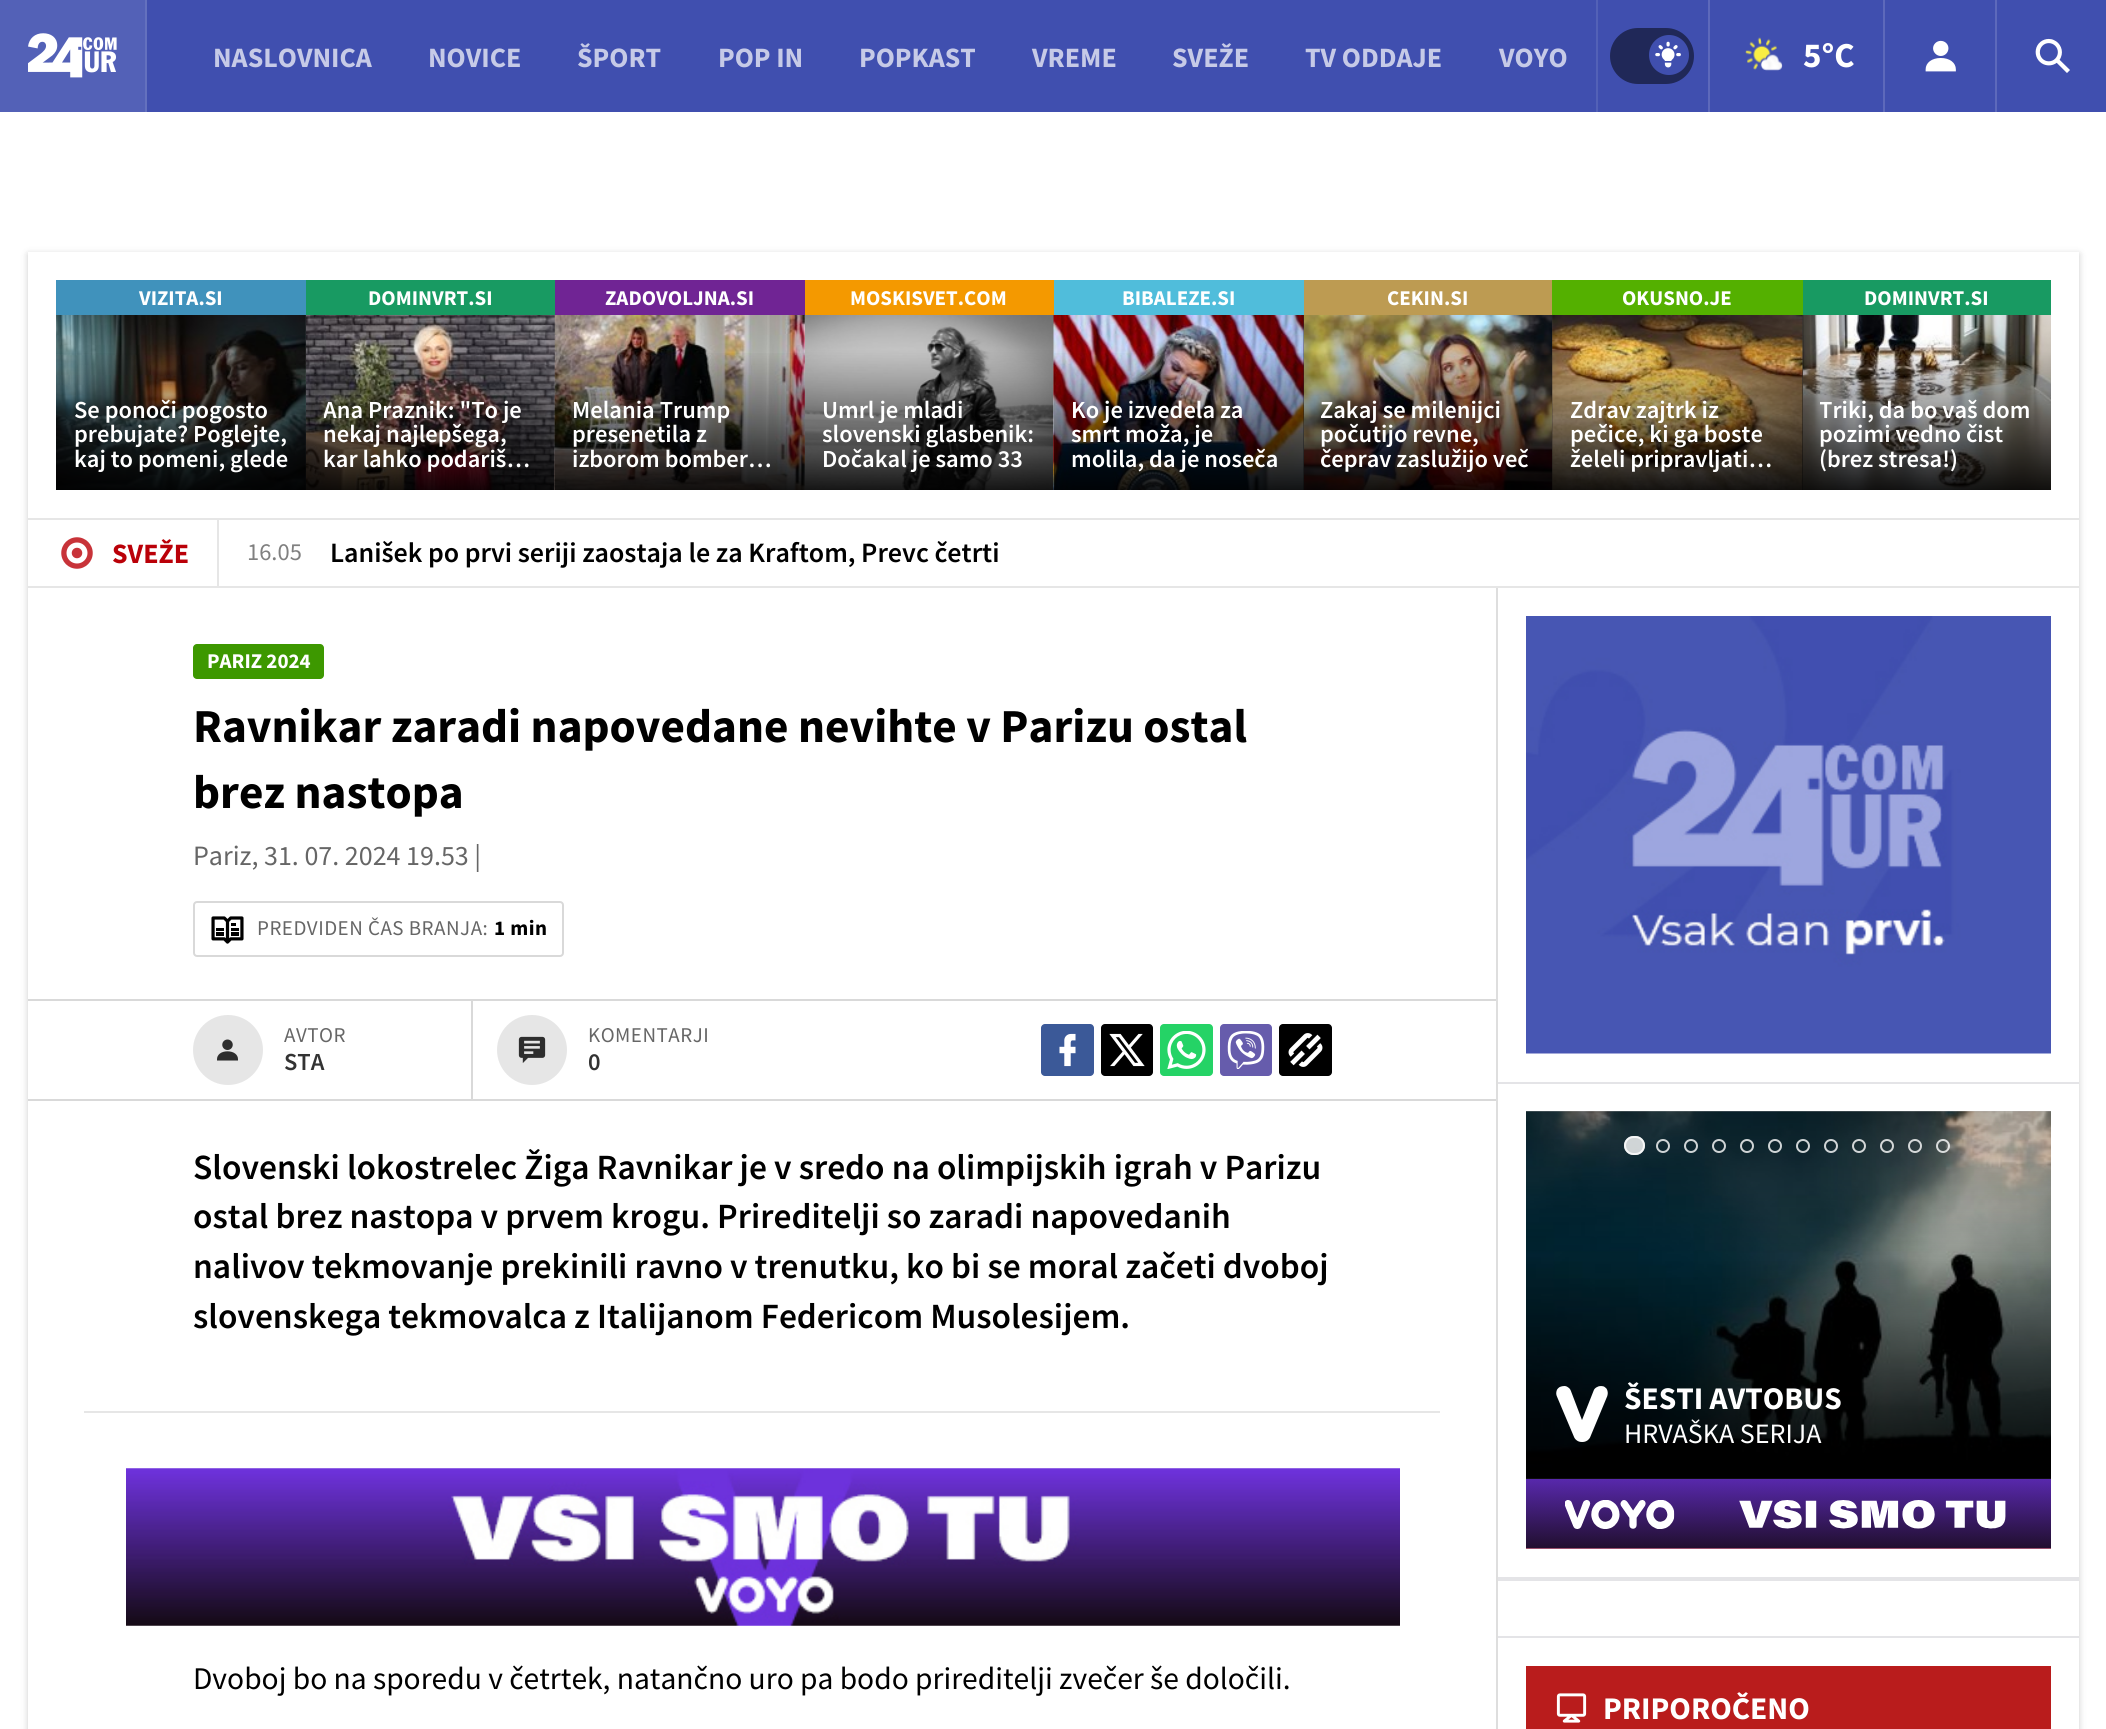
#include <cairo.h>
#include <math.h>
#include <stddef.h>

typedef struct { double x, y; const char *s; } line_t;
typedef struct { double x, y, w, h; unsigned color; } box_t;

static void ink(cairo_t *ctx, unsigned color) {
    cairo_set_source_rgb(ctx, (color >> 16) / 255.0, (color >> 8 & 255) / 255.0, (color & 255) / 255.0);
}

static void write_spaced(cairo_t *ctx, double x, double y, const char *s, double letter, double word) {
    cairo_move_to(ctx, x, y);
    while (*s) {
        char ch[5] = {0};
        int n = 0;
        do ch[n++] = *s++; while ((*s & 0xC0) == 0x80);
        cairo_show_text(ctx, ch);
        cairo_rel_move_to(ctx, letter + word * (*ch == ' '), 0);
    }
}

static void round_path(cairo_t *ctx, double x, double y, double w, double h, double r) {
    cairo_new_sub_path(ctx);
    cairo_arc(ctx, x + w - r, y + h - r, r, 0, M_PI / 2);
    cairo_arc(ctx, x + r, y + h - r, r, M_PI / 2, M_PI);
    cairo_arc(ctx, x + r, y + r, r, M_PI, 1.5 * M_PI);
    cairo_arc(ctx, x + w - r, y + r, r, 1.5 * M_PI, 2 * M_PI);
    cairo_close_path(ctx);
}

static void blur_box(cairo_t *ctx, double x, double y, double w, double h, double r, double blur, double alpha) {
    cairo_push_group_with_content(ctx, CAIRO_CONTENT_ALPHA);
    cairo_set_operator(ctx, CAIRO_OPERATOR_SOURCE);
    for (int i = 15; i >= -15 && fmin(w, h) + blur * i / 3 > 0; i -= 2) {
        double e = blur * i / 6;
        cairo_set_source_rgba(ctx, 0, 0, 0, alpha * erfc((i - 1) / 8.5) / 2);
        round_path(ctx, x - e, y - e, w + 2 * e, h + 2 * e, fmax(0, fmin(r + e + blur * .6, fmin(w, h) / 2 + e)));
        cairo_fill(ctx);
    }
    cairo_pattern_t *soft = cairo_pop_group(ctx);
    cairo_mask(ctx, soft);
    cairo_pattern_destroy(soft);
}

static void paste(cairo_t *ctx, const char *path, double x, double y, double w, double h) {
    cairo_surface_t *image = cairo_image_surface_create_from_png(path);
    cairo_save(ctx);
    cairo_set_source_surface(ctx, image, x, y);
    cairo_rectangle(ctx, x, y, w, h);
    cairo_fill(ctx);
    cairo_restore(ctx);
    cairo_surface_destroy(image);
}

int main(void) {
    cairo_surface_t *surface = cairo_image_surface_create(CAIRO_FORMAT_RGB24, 2106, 1729);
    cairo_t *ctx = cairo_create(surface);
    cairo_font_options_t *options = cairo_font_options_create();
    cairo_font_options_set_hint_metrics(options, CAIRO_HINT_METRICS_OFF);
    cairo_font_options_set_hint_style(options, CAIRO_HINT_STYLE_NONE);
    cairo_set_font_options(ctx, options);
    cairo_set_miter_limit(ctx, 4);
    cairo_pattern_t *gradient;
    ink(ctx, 0xFFFFFF);
    cairo_paint(ctx);
    {
        static const box_t items[] = {
            {147, 0, 1959, 112, 0x404FAF},
            {0, 0, 145, 112, 0x5361B7},
            {145, 0, 2, 112, 0x6471BE},
        };
        for (size_t i = 0; i < sizeof items / sizeof *items; i++) {
            ink(ctx, items[i].color);
            cairo_rectangle(ctx, items[i].x, items[i].y, items[i].w, items[i].h);
            cairo_fill(ctx);
        }
    }
    paste(ctx, "media/1.png", 28, 33, 89, 45);
    cairo_select_font_face(ctx, "Source Sans Pro", CAIRO_FONT_SLANT_NORMAL, CAIRO_FONT_WEIGHT_BOLD);
    cairo_set_font_size(ctx, 28);
    ink(ctx, 0xC6CAE7);
    {
        static const line_t items[] = {
            {213, 67, "NASLOVNICA"},
            {428, 67, "NOVICE"},
            {577, 67, "ŠPORT"},
            {718, 67, "POP IN"},
            {859, 67, "POPKAST"},
            {1032, 67, "VREME"},
            {1172, 67, "SVEŽE"},
            {1305, 67, "TV ODDAJE"},
            {1499, 67, "VOYO"},
        };
        for (size_t i = 0; i < sizeof items / sizeof *items; i++) {
            cairo_move_to(ctx, items[i].x, items[i].y);
            cairo_show_text(ctx, items[i].s);
        }
    }
    ink(ctx, 0x5361B7);
    cairo_rectangle(ctx, 1596, 0, 2, 112);
    cairo_fill(ctx);
    ink(ctx, 0x202858);
    round_path(ctx, 1610, 28, 84, 56, 28);
    cairo_fill(ctx);
    ink(ctx, 0x404FAF);
    cairo_arc(ctx, 1669, 55, 20, 0, 2 * M_PI);
    cairo_fill(ctx);
    paste(ctx, "media/2.png", 1655, 41, 26, 27);
    ink(ctx, 0x5D69BB);
    cairo_rectangle(ctx, 1708, 0, 2, 112);
    cairo_fill(ctx);
    paste(ctx, "media/3.png", 1745, 37, 38, 34);
    cairo_set_font_size(ctx, 35);
    ink(ctx, 0xFFFFFF);
    cairo_move_to(ctx, 1803, 67);
    cairo_show_text(ctx, "5°C");
    ink(ctx, 0x5D69BB);
    cairo_rectangle(ctx, 1883, 0, 2, 112);
    cairo_fill(ctx);
    paste(ctx, "media/4.png", 1925, 40, 31, 32);
    cairo_rectangle(ctx, 1995, 0, 2, 112);
    cairo_fill(ctx);
    paste(ctx, "media/5.png", 2035, 38, 35, 35);
    cairo_save(ctx);
    cairo_set_fill_rule(ctx, CAIRO_FILL_RULE_EVEN_ODD);
    cairo_new_path(ctx);
    cairo_move_to(ctx, 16, 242);
    cairo_line_to(ctx, 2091, 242);
    cairo_line_to(ctx, 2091, 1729);
    cairo_line_to(ctx, 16, 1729);
    cairo_close_path(ctx);
    cairo_move_to(ctx, 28, 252);
    cairo_line_to(ctx, 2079, 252);
    cairo_line_to(ctx, 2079, 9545);
    cairo_line_to(ctx, 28, 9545);
    cairo_close_path(ctx);
    cairo_clip(ctx);
    ink(ctx, 0x000000);
    blur_box(ctx, 28, 254, 2051, 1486, 0, 3.5, 0.2);
    cairo_restore(ctx);
    ink(ctx, 0x4092BC);
    cairo_rectangle(ctx, 56, 280, 250, 35);
    cairo_fill(ctx);
    cairo_set_font_size(ctx, 21);
    ink(ctx, 0xFFFFFF);
    cairo_move_to(ctx, 139, 305);
    cairo_show_text(ctx, "VIZITA.SI");
    paste(ctx, "media/6.png", 56, 315, 250, 175);
    gradient = cairo_pattern_create_linear(181, 315, 181, 490);
    cairo_pattern_add_color_stop_rgba(gradient, 0.2, 0, 0, 0, 0);
    cairo_pattern_add_color_stop_rgba(gradient, 1, 0, 0, 0, 0.9);
    cairo_set_source(ctx, gradient);
    cairo_pattern_destroy(gradient);
    cairo_rectangle(ctx, 56, 353, 250, 137);
    cairo_fill(ctx);
    cairo_select_font_face(ctx, "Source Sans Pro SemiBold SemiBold", CAIRO_FONT_SLANT_NORMAL, CAIRO_FONT_WEIGHT_NORMAL);
    cairo_set_font_size(ctx, 24.5);
    ink(ctx, 0xFFFFFF);
    {
        static const line_t items[] = {
            {74, 418, "Se ponoči pogosto"},
            {74, 442, "prebujate? Poglejte,"},
            {74, 467, "kaj to pomeni, glede"},
        };
        for (size_t i = 0; i < sizeof items / sizeof *items; i++) {
            cairo_move_to(ctx, items[i].x, items[i].y);
            cairo_show_text(ctx, items[i].s);
        }
    }
    ink(ctx, 0x189A62);
    cairo_rectangle(ctx, 306, 280, 249, 35);
    cairo_fill(ctx);
    cairo_select_font_face(ctx, "Source Sans Pro", CAIRO_FONT_SLANT_NORMAL, CAIRO_FONT_WEIGHT_BOLD);
    cairo_set_font_size(ctx, 21);
    ink(ctx, 0xFFFFFF);
    cairo_move_to(ctx, 368, 305);
    cairo_show_text(ctx, "DOMINVRT.SI");
    paste(ctx, "media/7.png", 306, 315, 249, 175);
    cairo_save(ctx);
    cairo_rectangle(ctx, 324, 397, 213, 76);
    cairo_clip(ctx);
    cairo_select_font_face(ctx, "Source Sans Pro SemiBold SemiBold", CAIRO_FONT_SLANT_NORMAL, CAIRO_FONT_WEIGHT_NORMAL);
    cairo_set_font_size(ctx, 24.5);
    cairo_move_to(ctx, 323, 418);
    cairo_show_text(ctx, "Ana Praznik: \"To je");
    cairo_restore(ctx);
    cairo_select_font_face(ctx, "Source Sans Pro SemiBold SemiBold", CAIRO_FONT_SLANT_NORMAL, CAIRO_FONT_WEIGHT_NORMAL);
    cairo_set_font_size(ctx, 24.5);
    cairo_move_to(ctx, 323, 442);
    cairo_show_text(ctx, "nekaj najlepšega,");
    cairo_move_to(ctx, 323, 467);
    cairo_show_text(ctx, "kar lahko podariš…");
    ink(ctx, 0x702494);
    cairo_rectangle(ctx, 555, 280, 250, 35);
    cairo_fill(ctx);
    cairo_select_font_face(ctx, "Source Sans Pro", CAIRO_FONT_SLANT_NORMAL, CAIRO_FONT_WEIGHT_BOLD);
    cairo_set_font_size(ctx, 21);
    ink(ctx, 0xFFFFFF);
    cairo_move_to(ctx, 605, 305);
    cairo_show_text(ctx, "ZADOVOLJNA.SI");
    paste(ctx, "media/8.png", 554, 315, 251, 175);
    gradient = cairo_pattern_create_linear(680, 315, 680, 490);
    cairo_pattern_add_color_stop_rgba(gradient, 0.2, 0, 0, 0, 0);
    cairo_pattern_add_color_stop_rgba(gradient, 1, 0, 0, 0, 0.9);
    cairo_set_source(ctx, gradient);
    cairo_pattern_destroy(gradient);
    cairo_rectangle(ctx, 555, 353, 250, 137);
    cairo_fill(ctx);
    cairo_select_font_face(ctx, "Source Sans Pro SemiBold SemiBold", CAIRO_FONT_SLANT_NORMAL, CAIRO_FONT_WEIGHT_NORMAL);
    cairo_set_font_size(ctx, 24.5);
    ink(ctx, 0xFFFFFF);
    {
        static const line_t items[] = {
            {572, 418, "Melania Trump"},
            {572, 442, "presenetila z"},
            {572, 467, "izborom bomber…"},
        };
        for (size_t i = 0; i < sizeof items / sizeof *items; i++) {
            cairo_move_to(ctx, items[i].x, items[i].y);
            cairo_show_text(ctx, items[i].s);
        }
    }
    ink(ctx, 0xF49900);
    cairo_rectangle(ctx, 805, 280, 249, 35);
    cairo_fill(ctx);
    cairo_select_font_face(ctx, "Source Sans Pro", CAIRO_FONT_SLANT_NORMAL, CAIRO_FONT_WEIGHT_BOLD);
    cairo_set_font_size(ctx, 21);
    ink(ctx, 0xFFFFFF);
    cairo_move_to(ctx, 850, 305);
    cairo_show_text(ctx, "MOSKISVET.COM");
    paste(ctx, "media/9.png", 805, 315, 249, 175);
    cairo_select_font_face(ctx, "Source Sans Pro SemiBold SemiBold", CAIRO_FONT_SLANT_NORMAL, CAIRO_FONT_WEIGHT_NORMAL);
    cairo_set_font_size(ctx, 24.5);
    cairo_move_to(ctx, 822, 418);
    cairo_show_text(ctx, "Umrl je mladi");
    cairo_save(ctx);
    cairo_rectangle(ctx, 823, 397, 213, 76);
    cairo_clip(ctx);
    cairo_move_to(ctx, 822, 442);
    cairo_show_text(ctx, "slovenski glasbenik:");
    cairo_restore(ctx);
    cairo_move_to(ctx, 822, 467);
    cairo_show_text(ctx, "Dočakal je samo 33");
    ink(ctx, 0x50BDDB);
    cairo_rectangle(ctx, 1054, 280, 250, 35);
    cairo_fill(ctx);
    cairo_select_font_face(ctx, "Source Sans Pro", CAIRO_FONT_SLANT_NORMAL, CAIRO_FONT_WEIGHT_BOLD);
    cairo_set_font_size(ctx, 21);
    ink(ctx, 0xFFFFFF);
    cairo_move_to(ctx, 1122, 305);
    cairo_show_text(ctx, "BIBALEZE.SI");
    ink(ctx, 0x333333);
    cairo_rectangle(ctx, 1303, 315, 1, 175);
    cairo_fill(ctx);
    paste(ctx, "media/10.png", 1053, 315, 251, 175);
    gradient = cairo_pattern_create_linear(1179, 315, 1179, 490);
    cairo_pattern_add_color_stop_rgba(gradient, 0.2, 0, 0, 0, 0);
    cairo_pattern_add_color_stop_rgba(gradient, 1, 0, 0, 0, 0.9);
    cairo_set_source(ctx, gradient);
    cairo_pattern_destroy(gradient);
    cairo_rectangle(ctx, 1054, 353, 250, 137);
    cairo_fill(ctx);
    cairo_select_font_face(ctx, "Source Sans Pro SemiBold SemiBold", CAIRO_FONT_SLANT_NORMAL, CAIRO_FONT_WEIGHT_NORMAL);
    cairo_set_font_size(ctx, 24.5);
    ink(ctx, 0xFFFFFF);
    {
        static const line_t items[] = {
            {1071, 418, "Ko je izvedela za"},
            {1071, 442, "smrt moža, je"},
            {1071, 467, "molila, da je noseča"},
        };
        for (size_t i = 0; i < sizeof items / sizeof *items; i++) {
            cairo_move_to(ctx, items[i].x, items[i].y);
            cairo_show_text(ctx, items[i].s);
        }
    }
    ink(ctx, 0xBD9B52);
    cairo_rectangle(ctx, 1304, 280, 248, 35);
    cairo_fill(ctx);
    cairo_select_font_face(ctx, "Source Sans Pro", CAIRO_FONT_SLANT_NORMAL, CAIRO_FONT_WEIGHT_BOLD);
    cairo_set_font_size(ctx, 21);
    ink(ctx, 0xFFFFFF);
    cairo_move_to(ctx, 1387, 305);
    cairo_show_text(ctx, "CEKIN.SI");
    paste(ctx, "media/11.png", 1304, 315, 248, 175);
    cairo_select_font_face(ctx, "Source Sans Pro SemiBold SemiBold", CAIRO_FONT_SLANT_NORMAL, CAIRO_FONT_WEIGHT_NORMAL);
    cairo_set_font_size(ctx, 24.5);
    {
        static const line_t items[] = {
            {1320, 418, "Zakaj se milenijci"},
            {1320, 442, "počutijo revne,"},
            {1320, 467, "čeprav zaslužijo več"},
        };
        for (size_t i = 0; i < sizeof items / sizeof *items; i++) {
            cairo_move_to(ctx, items[i].x, items[i].y);
            cairo_show_text(ctx, items[i].s);
        }
    }
    ink(ctx, 0x54B000);
    cairo_rectangle(ctx, 1552, 280, 251, 35);
    cairo_fill(ctx);
    cairo_select_font_face(ctx, "Source Sans Pro", CAIRO_FONT_SLANT_NORMAL, CAIRO_FONT_WEIGHT_BOLD);
    cairo_set_font_size(ctx, 21);
    ink(ctx, 0xFFFFFF);
    cairo_move_to(ctx, 1622, 305);
    cairo_show_text(ctx, "OKUSNO.JE");
    ink(ctx, 0x333333);
    cairo_rectangle(ctx, 1552, 315, 251, 175);
    cairo_fill(ctx);
    paste(ctx, "media/12.png", 1552, 315, 251, 175);
    gradient = cairo_pattern_create_linear(1677, 315, 1677, 490);
    cairo_pattern_add_color_stop_rgba(gradient, 0.2, 0, 0, 0, 0);
    cairo_pattern_add_color_stop_rgba(gradient, 1, 0, 0, 0, 0.9);
    cairo_set_source(ctx, gradient);
    cairo_pattern_destroy(gradient);
    cairo_rectangle(ctx, 1552, 353, 251, 137);
    cairo_fill(ctx);
    cairo_select_font_face(ctx, "Source Sans Pro SemiBold SemiBold", CAIRO_FONT_SLANT_NORMAL, CAIRO_FONT_WEIGHT_NORMAL);
    cairo_set_font_size(ctx, 24.5);
    ink(ctx, 0xFFFFFF);
    {
        static const line_t items[] = {
            {1570, 418, "Zdrav zajtrk iz"},
            {1570, 442, "pečice, ki ga boste"},
            {1570, 467, "želeli pripravljati…"},
        };
        for (size_t i = 0; i < sizeof items / sizeof *items; i++) {
            cairo_move_to(ctx, items[i].x, items[i].y);
            cairo_show_text(ctx, items[i].s);
        }
    }
    ink(ctx, 0x189A62);
    cairo_rectangle(ctx, 1803, 280, 248, 35);
    cairo_fill(ctx);
    cairo_select_font_face(ctx, "Source Sans Pro", CAIRO_FONT_SLANT_NORMAL, CAIRO_FONT_WEIGHT_BOLD);
    cairo_set_font_size(ctx, 21);
    ink(ctx, 0xFFFFFF);
    cairo_move_to(ctx, 1864, 305);
    cairo_show_text(ctx, "DOMINVRT.SI");
    paste(ctx, "media/13.png", 1803, 315, 248, 175);
    cairo_save(ctx);
    cairo_rectangle(ctx, 1820, 397, 214, 76);
    cairo_clip(ctx);
    cairo_select_font_face(ctx, "Source Sans Pro SemiBold SemiBold", CAIRO_FONT_SLANT_NORMAL, CAIRO_FONT_WEIGHT_NORMAL);
    cairo_set_font_size(ctx, 24.5);
    cairo_move_to(ctx, 1819, 418);
    cairo_show_text(ctx, "Triki, da bo vaš dom");
    cairo_restore(ctx);
    cairo_select_font_face(ctx, "Source Sans Pro SemiBold SemiBold", CAIRO_FONT_SLANT_NORMAL, CAIRO_FONT_WEIGHT_NORMAL);
    cairo_set_font_size(ctx, 24.5);
    cairo_move_to(ctx, 1819, 442);
    cairo_show_text(ctx, "pozimi vedno čist");
    cairo_move_to(ctx, 1819, 467);
    cairo_show_text(ctx, "(brez stresa!)");
    {
        static const box_t items[] = {
            {28, 518, 2051, 2, 0xE6E6E6},
            {28, 586, 2051, 2, 0xE6E6E6},
            {217, 520, 2, 66, 0xE6E6E6},
        };
        for (size_t i = 0; i < sizeof items / sizeof *items; i++) {
            ink(ctx, items[i].color);
            cairo_rectangle(ctx, items[i].x, items[i].y, items[i].w, items[i].h);
            cairo_fill(ctx);
        }
    }
    paste(ctx, "media/14.png", 61, 537, 32, 32);
    cairo_select_font_face(ctx, "Source Sans Pro", CAIRO_FONT_SLANT_NORMAL, CAIRO_FONT_WEIGHT_BOLD);
    cairo_set_font_size(ctx, 28);
    ink(ctx, 0xBA0008);
    cairo_move_to(ctx, 112, 563);
    cairo_show_text(ctx, "SVEŽE");
    cairo_select_font_face(ctx, "Source Sans Pro", CAIRO_FONT_SLANT_NORMAL, CAIRO_FONT_WEIGHT_NORMAL);
    cairo_set_font_size(ctx, 24.5);
    ink(ctx, 0x808080);
    cairo_move_to(ctx, 247, 560);
    cairo_show_text(ctx, "16.05");
    cairo_select_font_face(ctx, "Source Sans Pro SemiBold SemiBold", CAIRO_FONT_SLANT_NORMAL, CAIRO_FONT_WEIGHT_NORMAL);
    cairo_set_font_size(ctx, 28);
    ink(ctx, 0x000000);
    cairo_move_to(ctx, 330, 562);
    cairo_show_text(ctx, "Lanišek po prvi seriji zaostaja le za Kraftom, Prevc četrti");
    ink(ctx, 0xDEDEDE);
    cairo_rectangle(ctx, 1496, 588, 2, 1141);
    cairo_fill(ctx);
    ink(ctx, 0x3D9800);
    round_path(ctx, 193, 644, 131, 35, 4);
    cairo_fill(ctx);
    cairo_select_font_face(ctx, "Source Sans Pro", CAIRO_FONT_SLANT_NORMAL, CAIRO_FONT_WEIGHT_BOLD);
    cairo_set_font_size(ctx, 21);
    ink(ctx, 0xFFFFFF);
    cairo_move_to(ctx, 207, 668);
    cairo_show_text(ctx, "PARIZ 2024");
    cairo_set_font_size(ctx, 47.25);
    ink(ctx, 0x000000);
    cairo_move_to(ctx, 193, 742);
    cairo_show_text(ctx, "Ravnikar zaradi napovedane nevihte v Parizu ostal");
    cairo_move_to(ctx, 193, 808);
    cairo_show_text(ctx, "brez nastopa");
    cairo_select_font_face(ctx, "Source Sans Pro", CAIRO_FONT_SLANT_NORMAL, CAIRO_FONT_WEIGHT_NORMAL);
    cairo_set_font_size(ctx, 28);
    ink(ctx, 0x666666);
    cairo_move_to(ctx, 193, 865);
    cairo_show_text(ctx, "Pariz, 31. 07. 2024 19.53 |");
    round_path(ctx, 194, 902, 369, 54, 3);
    ink(ctx, 0xD9D9D9);
    cairo_stroke(ctx);
    paste(ctx, "media/15.png", 211, 916, 33, 28);
    cairo_set_font_size(ctx, 21);
    ink(ctx, 0x666666);
    write_spaced(ctx, 257, 935, "PREDVIDEN ČAS BRANJA:", 0.5, 0);
    cairo_select_font_face(ctx, "Source Sans Pro", CAIRO_FONT_SLANT_NORMAL, CAIRO_FONT_WEIGHT_BOLD);
    ink(ctx, 0x000000);
    write_spaced(ctx, 494, 935, "1 min", 0.5, 0);
    {
        static const box_t items[] = {
            {28, 999, 1468, 2, 0xD9D9D9},
            {28, 1099, 1468, 2, 0xD9D9D9},
            {471, 1001, 2, 98, 0xD9D9D9},
        };
        for (size_t i = 0; i < sizeof items / sizeof *items; i++) {
            ink(ctx, items[i].color);
            cairo_rectangle(ctx, items[i].x, items[i].y, items[i].w, items[i].h);
            cairo_fill(ctx);
        }
    }
    ink(ctx, 0xE6E6E6);
    cairo_new_path(ctx);
    cairo_arc(ctx, 228, 1050, 35, 0, 2 * M_PI);
    cairo_fill(ctx);
    paste(ctx, "media/16.png", 217, 1039, 21, 22);
    cairo_select_font_face(ctx, "Source Sans Pro", CAIRO_FONT_SLANT_NORMAL, CAIRO_FONT_WEIGHT_NORMAL);
    ink(ctx, 0x666666);
    write_spaced(ctx, 284, 1042, "AVTOR", 0.5, 0);
    cairo_select_font_face(ctx, "Source Sans Pro SemiBold SemiBold", CAIRO_FONT_SLANT_NORMAL, CAIRO_FONT_WEIGHT_NORMAL);
    cairo_set_font_size(ctx, 24.5);
    ink(ctx, 0x333333);
    cairo_move_to(ctx, 284, 1070);
    cairo_show_text(ctx, "STA");
    ink(ctx, 0xE6E6E6);
    cairo_new_path(ctx);
    cairo_arc(ctx, 532, 1050, 35, 0, 2 * M_PI);
    cairo_fill(ctx);
    paste(ctx, "media/17.png", 518, 1036, 28, 27);
    cairo_select_font_face(ctx, "Source Sans Pro", CAIRO_FONT_SLANT_NORMAL, CAIRO_FONT_WEIGHT_NORMAL);
    cairo_set_font_size(ctx, 21);
    ink(ctx, 0x666666);
    write_spaced(ctx, 588, 1042, "KOMENTARJI", 0.5, 0);
    cairo_select_font_face(ctx, "Source Sans Pro SemiBold SemiBold", CAIRO_FONT_SLANT_NORMAL, CAIRO_FONT_WEIGHT_NORMAL);
    cairo_set_font_size(ctx, 24.5);
    ink(ctx, 0x333333);
    cairo_move_to(ctx, 588, 1070);
    cairo_show_text(ctx, "0");
    ink(ctx, 0x3B5998);
    round_path(ctx, 1041, 1024, 53, 52, 4);
    cairo_fill(ctx);
    paste(ctx, "media/18.png", 1059, 1033, 17, 34);
    ink(ctx, 0x000000);
    round_path(ctx, 1101, 1024, 52, 52, 4);
    cairo_fill(ctx);
    paste(ctx, "media/19.png", 1109, 1033, 36, 34);
    ink(ctx, 0x25D366);
    round_path(ctx, 1160, 1024, 53, 52, 4);
    cairo_fill(ctx);
    paste(ctx, "media/20.png", 1167, 1031, 39, 38);
    ink(ctx, 0x665CAC);
    round_path(ctx, 1220, 1024, 52, 52, 4);
    cairo_fill(ctx);
    paste(ctx, "media/21.png", 1227, 1031, 38, 38);
    ink(ctx, 0x000000);
    round_path(ctx, 1279, 1024, 53, 52, 4);
    cairo_fill(ctx);
    paste(ctx, "media/22.png", 1288, 1033, 35, 34);
    ink(ctx, 0xE6E6E6);
    cairo_rectangle(ctx, 84, 1411, 1356, 2);
    cairo_fill(ctx);
    cairo_set_font_size(ctx, 35.45);
    ink(ctx, 0x000000);
    {
        static const line_t items[] = {
            {193, 1179, "Slovenski lokostrelec Žiga Ravnikar je v sredo na olimpijskih igrah v Parizu"},
            {193, 1228, "ostal brez nastopa v prvem krogu. Prireditelji so zaradi napovedanih"},
            {193, 1278, "nalivov tekmovanje prekinili ravno v trenutku, ko bi se moral začeti dvoboj"},
            {193, 1328, "slovenskega tekmovalca z Italijanom Federicom Musolesijem."},
        };
        for (size_t i = 0; i < sizeof items / sizeof *items; i++) {
            cairo_move_to(ctx, items[i].x, items[i].y);
            cairo_show_text(ctx, items[i].s);
        }
    }
    paste(ctx, "media/23.png", 126, 1468, 1274, 158);
    cairo_select_font_face(ctx, "Source Sans Pro", CAIRO_FONT_SLANT_NORMAL, CAIRO_FONT_WEIGHT_NORMAL);
    cairo_set_font_size(ctx, 31.5);
    cairo_move_to(ctx, 193, 1689);
    cairo_show_text(ctx, "Dvoboj bo na sporedu v četrtek, natančno uro pa bodo prireditelji zvečer še določili.");
    ink(ctx, 0xE4E4E7);
    cairo_rectangle(ctx, 1498, 1082, 581, 2);
    cairo_fill(ctx);
    paste(ctx, "media/24.png", 1526, 616, 525, 438);
    cairo_rectangle(ctx, 1498, 1577, 581, 4);
    cairo_fill(ctx);
    paste(ctx, "media/25.png", 1526, 1111, 525, 368);
    gradient = cairo_pattern_create_linear(1789, 1479, 1789, 1111);
    cairo_pattern_add_color_stop_rgba(gradient, 0, 0, 0, 0, 0.8);
    cairo_pattern_add_color_stop_rgba(gradient, 0.6, 0, 0, 0, 0);
    cairo_pattern_add_color_stop_rgba(gradient, 1, 0, 0, 0, 0.3);
    cairo_set_source(ctx, gradient);
    cairo_pattern_destroy(gradient);
    cairo_rectangle(ctx, 1526, 1111, 525, 368);
    cairo_fill(ctx);
    cairo_set_source_rgba(ctx, 1, 1, 1, 0.8);
    round_path(ctx, 1624, 1136, 21, 19, 9.5);
    cairo_fill(ctx);
    round_path(ctx, 1625, 1137, 19, 17, 8.5);
    cairo_stroke(ctx);
    cairo_arc(ctx, 1663, 1146, 6, 0, 2 * M_PI);
    cairo_stroke(ctx);
    cairo_arc(ctx, 1691, 1146, 6, 0, 2 * M_PI);
    cairo_stroke(ctx);
    cairo_arc(ctx, 1719, 1146, 6, 0, 2 * M_PI);
    cairo_stroke(ctx);
    cairo_arc(ctx, 1747, 1146, 6, 0, 2 * M_PI);
    cairo_stroke(ctx);
    cairo_arc(ctx, 1775, 1146, 6, 0, 2 * M_PI);
    cairo_stroke(ctx);
    cairo_arc(ctx, 1803, 1146, 6, 0, 2 * M_PI);
    cairo_stroke(ctx);
    cairo_arc(ctx, 1831, 1146, 6, 0, 2 * M_PI);
    cairo_stroke(ctx);
    cairo_arc(ctx, 1859, 1146, 6, 0, 2 * M_PI);
    cairo_stroke(ctx);
    cairo_arc(ctx, 1887, 1146, 6, 0, 2 * M_PI);
    cairo_stroke(ctx);
    cairo_arc(ctx, 1915, 1146, 6, 0, 2 * M_PI);
    cairo_stroke(ctx);
    cairo_arc(ctx, 1943, 1146, 6, 0, 2 * M_PI);
    cairo_stroke(ctx);
    paste(ctx, "media/26.png", 1556, 1386, 52, 56);
    cairo_select_font_face(ctx, "Source Sans Pro", CAIRO_FONT_SLANT_NORMAL, CAIRO_FONT_WEIGHT_BOLD);
    ink(ctx, 0xFFFFFF);
    cairo_move_to(ctx, 1624, 1409);
    cairo_show_text(ctx, "ŠESTI AVTOBUS");
    cairo_select_font_face(ctx, "Source Sans Pro", CAIRO_FONT_SLANT_NORMAL, CAIRO_FONT_WEIGHT_NORMAL);
    cairo_set_font_size(ctx, 28);
    cairo_move_to(ctx, 1624, 1443);
    cairo_show_text(ctx, "HRVAŠKA SERIJA");
    ink(ctx, 0xE8244D);
    cairo_rectangle(ctx, 1526, 1548, 525, 1);
    cairo_fill(ctx);
    paste(ctx, "media/27.png", 1526, 1479, 525, 70);
    ink(ctx, 0xE4E4E7);
    cairo_rectangle(ctx, 1498, 1636, 581, 2);
    cairo_fill(ctx);
    ink(ctx, 0xB91C1C);
    cairo_rectangle(ctx, 1526, 1666, 525, 63);
    cairo_fill(ctx);
    paste(ctx, "media/28.png", 1556, 1693, 31, 30);
    cairo_select_font_face(ctx, "Source Sans Pro", CAIRO_FONT_SLANT_NORMAL, CAIRO_FONT_WEIGHT_BOLD);
    cairo_set_font_size(ctx, 31.5);
    ink(ctx, 0xFFFFFF);
    cairo_move_to(ctx, 1603, 1719);
    cairo_show_text(ctx, "PRIPOROČENO");
    cairo_surface_write_to_png(surface, "image.png");
    cairo_font_options_destroy(options);
    cairo_destroy(ctx);
    cairo_surface_destroy(surface);
    return 0;
}
